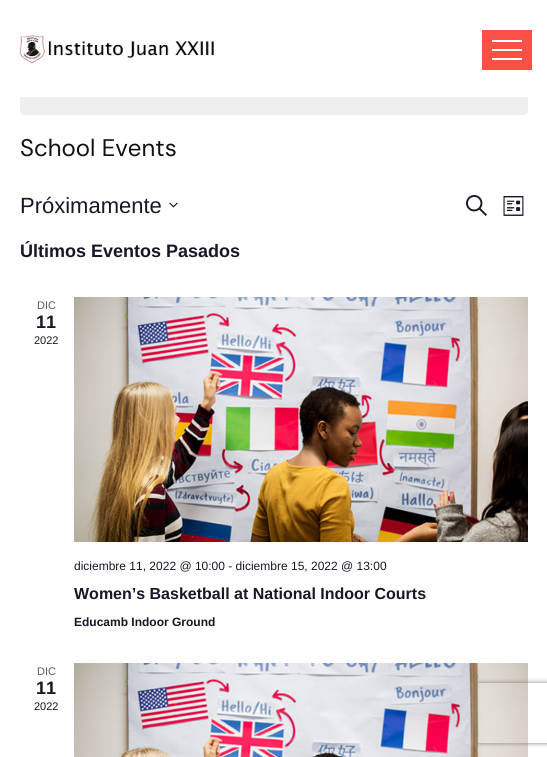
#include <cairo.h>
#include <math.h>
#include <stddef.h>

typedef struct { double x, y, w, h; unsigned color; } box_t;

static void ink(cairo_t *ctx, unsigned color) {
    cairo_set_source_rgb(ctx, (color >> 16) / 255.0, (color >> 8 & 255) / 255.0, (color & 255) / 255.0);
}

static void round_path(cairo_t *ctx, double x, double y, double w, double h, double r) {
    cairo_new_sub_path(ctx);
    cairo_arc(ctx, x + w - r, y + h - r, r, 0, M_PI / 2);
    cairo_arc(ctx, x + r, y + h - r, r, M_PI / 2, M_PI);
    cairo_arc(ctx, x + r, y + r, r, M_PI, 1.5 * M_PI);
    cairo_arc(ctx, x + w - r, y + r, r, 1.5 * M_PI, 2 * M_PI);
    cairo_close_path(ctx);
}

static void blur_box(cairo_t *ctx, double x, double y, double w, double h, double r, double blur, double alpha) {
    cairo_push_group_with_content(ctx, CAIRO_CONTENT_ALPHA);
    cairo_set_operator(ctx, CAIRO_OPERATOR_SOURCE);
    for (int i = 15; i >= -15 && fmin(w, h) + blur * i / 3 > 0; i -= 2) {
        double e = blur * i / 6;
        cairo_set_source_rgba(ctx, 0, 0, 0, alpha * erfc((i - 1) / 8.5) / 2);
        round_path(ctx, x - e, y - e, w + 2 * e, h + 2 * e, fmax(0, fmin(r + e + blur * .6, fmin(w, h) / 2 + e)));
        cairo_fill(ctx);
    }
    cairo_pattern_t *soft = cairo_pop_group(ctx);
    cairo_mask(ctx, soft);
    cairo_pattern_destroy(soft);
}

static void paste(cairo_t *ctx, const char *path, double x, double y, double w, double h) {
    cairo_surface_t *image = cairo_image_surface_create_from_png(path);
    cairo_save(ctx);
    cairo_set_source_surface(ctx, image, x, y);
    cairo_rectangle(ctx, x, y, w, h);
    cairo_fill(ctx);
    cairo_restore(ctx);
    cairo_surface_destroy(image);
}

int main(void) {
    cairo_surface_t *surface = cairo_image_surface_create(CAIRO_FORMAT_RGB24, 547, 757);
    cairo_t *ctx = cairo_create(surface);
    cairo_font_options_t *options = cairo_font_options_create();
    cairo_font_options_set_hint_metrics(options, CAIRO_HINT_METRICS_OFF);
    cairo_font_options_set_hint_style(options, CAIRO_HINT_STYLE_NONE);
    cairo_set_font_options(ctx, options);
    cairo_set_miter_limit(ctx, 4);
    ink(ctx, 0xFFFFFF);
    cairo_paint(ctx);
    {
        static const box_t items[] = {
            {482, 30, 50, 40, 0xFC5046},
            {492, 40, 30, 2, 0xFFFFFF},
            {492, 49, 30, 2, 0xFFFFFF},
            {492, 58, 30, 2, 0xFFFFFF},
        };
        for (size_t i = 0; i < sizeof items / sizeof *items; i++) {
            ink(ctx, items[i].color);
            cairo_rectangle(ctx, items[i].x, items[i].y, items[i].w, items[i].h);
            cairo_fill(ctx);
        }
    }
    ink(ctx, 0xEFEFF0);
    round_path(ctx, 20, 74, 508, 41, 4);
    cairo_fill(ctx);
    ink(ctx, 0xFFFFFF);
    cairo_rectangle(ctx, 20, 74, 508, 23);
    cairo_fill(ctx);
    paste(ctx, "media/1.png", 19, 35, 195, 29);
    cairo_select_font_face(ctx, "DM Sans", CAIRO_FONT_SLANT_NORMAL, CAIRO_FONT_WEIGHT_NORMAL);
    cairo_set_font_size(ctx, 24);
    ink(ctx, 0x121212);
    cairo_move_to(ctx, 20, 156);
    cairo_show_text(ctx, "School Events");
    cairo_select_font_face(ctx, "Liberation Sans", CAIRO_FONT_SLANT_NORMAL, CAIRO_FONT_WEIGHT_NORMAL);
    cairo_set_font_size(ctx, 22);
    ink(ctx, 0x141827);
    cairo_move_to(ctx, 20, 213);
    cairo_show_text(ctx, "Próximamente");
    paste(ctx, "media/2.png", 169, 202, 9, 6);
    paste(ctx, "media/3.png", 466, 195, 21, 21);
    paste(ctx, "media/4.png", 503, 196, 21, 20);
    cairo_select_font_face(ctx, "Liberation Sans", CAIRO_FONT_SLANT_NORMAL, CAIRO_FONT_WEIGHT_BOLD);
    cairo_set_font_size(ctx, 18);
    cairo_move_to(ctx, 20, 257);
    cairo_show_text(ctx, "Últimos Eventos Pasados");
    cairo_select_font_face(ctx, "Liberation Sans", CAIRO_FONT_SLANT_NORMAL, CAIRO_FONT_WEIGHT_NORMAL);
    cairo_set_font_size(ctx, 11);
    ink(ctx, 0x5D5D5D);
    cairo_move_to(ctx, 37, 309);
    cairo_show_text(ctx, "DIC");
    cairo_select_font_face(ctx, "Liberation Sans", CAIRO_FONT_SLANT_NORMAL, CAIRO_FONT_WEIGHT_BOLD);
    cairo_set_font_size(ctx, 18);
    ink(ctx, 0x141827);
    cairo_move_to(ctx, 36, 328);
    cairo_show_text(ctx, "11");
    cairo_select_font_face(ctx, "Liberation Sans", CAIRO_FONT_SLANT_NORMAL, CAIRO_FONT_WEIGHT_NORMAL);
    cairo_set_font_size(ctx, 11);
    cairo_move_to(ctx, 34, 344);
    cairo_show_text(ctx, "2022");
    paste(ctx, "media/5.png", 74, 297, 454, 245);
    cairo_set_font_size(ctx, 12);
    cairo_move_to(ctx, 74, 570);
    cairo_show_text(ctx, "diciembre 11, 2022 @ 10:00 - diciembre 15, 2022 @ 13:00");
    cairo_select_font_face(ctx, "Liberation Sans", CAIRO_FONT_SLANT_NORMAL, CAIRO_FONT_WEIGHT_BOLD);
    cairo_set_font_size(ctx, 16);
    cairo_move_to(ctx, 74, 599);
    cairo_show_text(ctx, "Women’s Basketball at National Indoor Courts");
    cairo_set_font_size(ctx, 12);
    cairo_move_to(ctx, 74, 626);
    cairo_show_text(ctx, "Educamb Indoor Ground");
    cairo_select_font_face(ctx, "Liberation Sans", CAIRO_FONT_SLANT_NORMAL, CAIRO_FONT_WEIGHT_NORMAL);
    cairo_set_font_size(ctx, 11);
    ink(ctx, 0x5D5D5D);
    cairo_move_to(ctx, 37, 675);
    cairo_show_text(ctx, "DIC");
    cairo_select_font_face(ctx, "Liberation Sans", CAIRO_FONT_SLANT_NORMAL, CAIRO_FONT_WEIGHT_BOLD);
    cairo_set_font_size(ctx, 18);
    ink(ctx, 0x141827);
    cairo_move_to(ctx, 36, 694);
    cairo_show_text(ctx, "11");
    cairo_select_font_face(ctx, "Liberation Sans", CAIRO_FONT_SLANT_NORMAL, CAIRO_FONT_WEIGHT_NORMAL);
    cairo_set_font_size(ctx, 11);
    cairo_move_to(ctx, 34, 710);
    cairo_show_text(ctx, "2022");
    paste(ctx, "media/6.png", 74, 663, 454, 94);
    cairo_save(ctx);
    cairo_set_fill_rule(ctx, CAIRO_FILL_RULE_EVEN_ODD);
    cairo_new_path(ctx);
    cairo_move_to(ctx, 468, 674);
    cairo_line_to(ctx, 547, 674);
    cairo_line_to(ctx, 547, 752);
    cairo_line_to(ctx, 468, 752);
    cairo_close_path(ctx);
    cairo_move_to(ctx, 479, 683);
    cairo_line_to(ctx, 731, 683);
    cairo_curve_to(ctx, 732, 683, 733, 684, 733, 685);
    cairo_line_to(ctx, 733, 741);
    cairo_curve_to(ctx, 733, 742, 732, 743, 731, 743);
    cairo_line_to(ctx, 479, 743);
    cairo_curve_to(ctx, 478, 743, 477, 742, 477, 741);
    cairo_line_to(ctx, 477, 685);
    cairo_curve_to(ctx, 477, 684, 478, 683, 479, 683);
    cairo_close_path(ctx);
    cairo_clip(ctx);
    ink(ctx, 0x808080);
    blur_box(ctx, 477, 683, 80, 60, 2, 2.5, 1);
    cairo_restore(ctx);
    cairo_surface_write_to_png(surface, "image.png");
    cairo_font_options_destroy(options);
    cairo_destroy(ctx);
    cairo_surface_destroy(surface);
    return 0;
}
